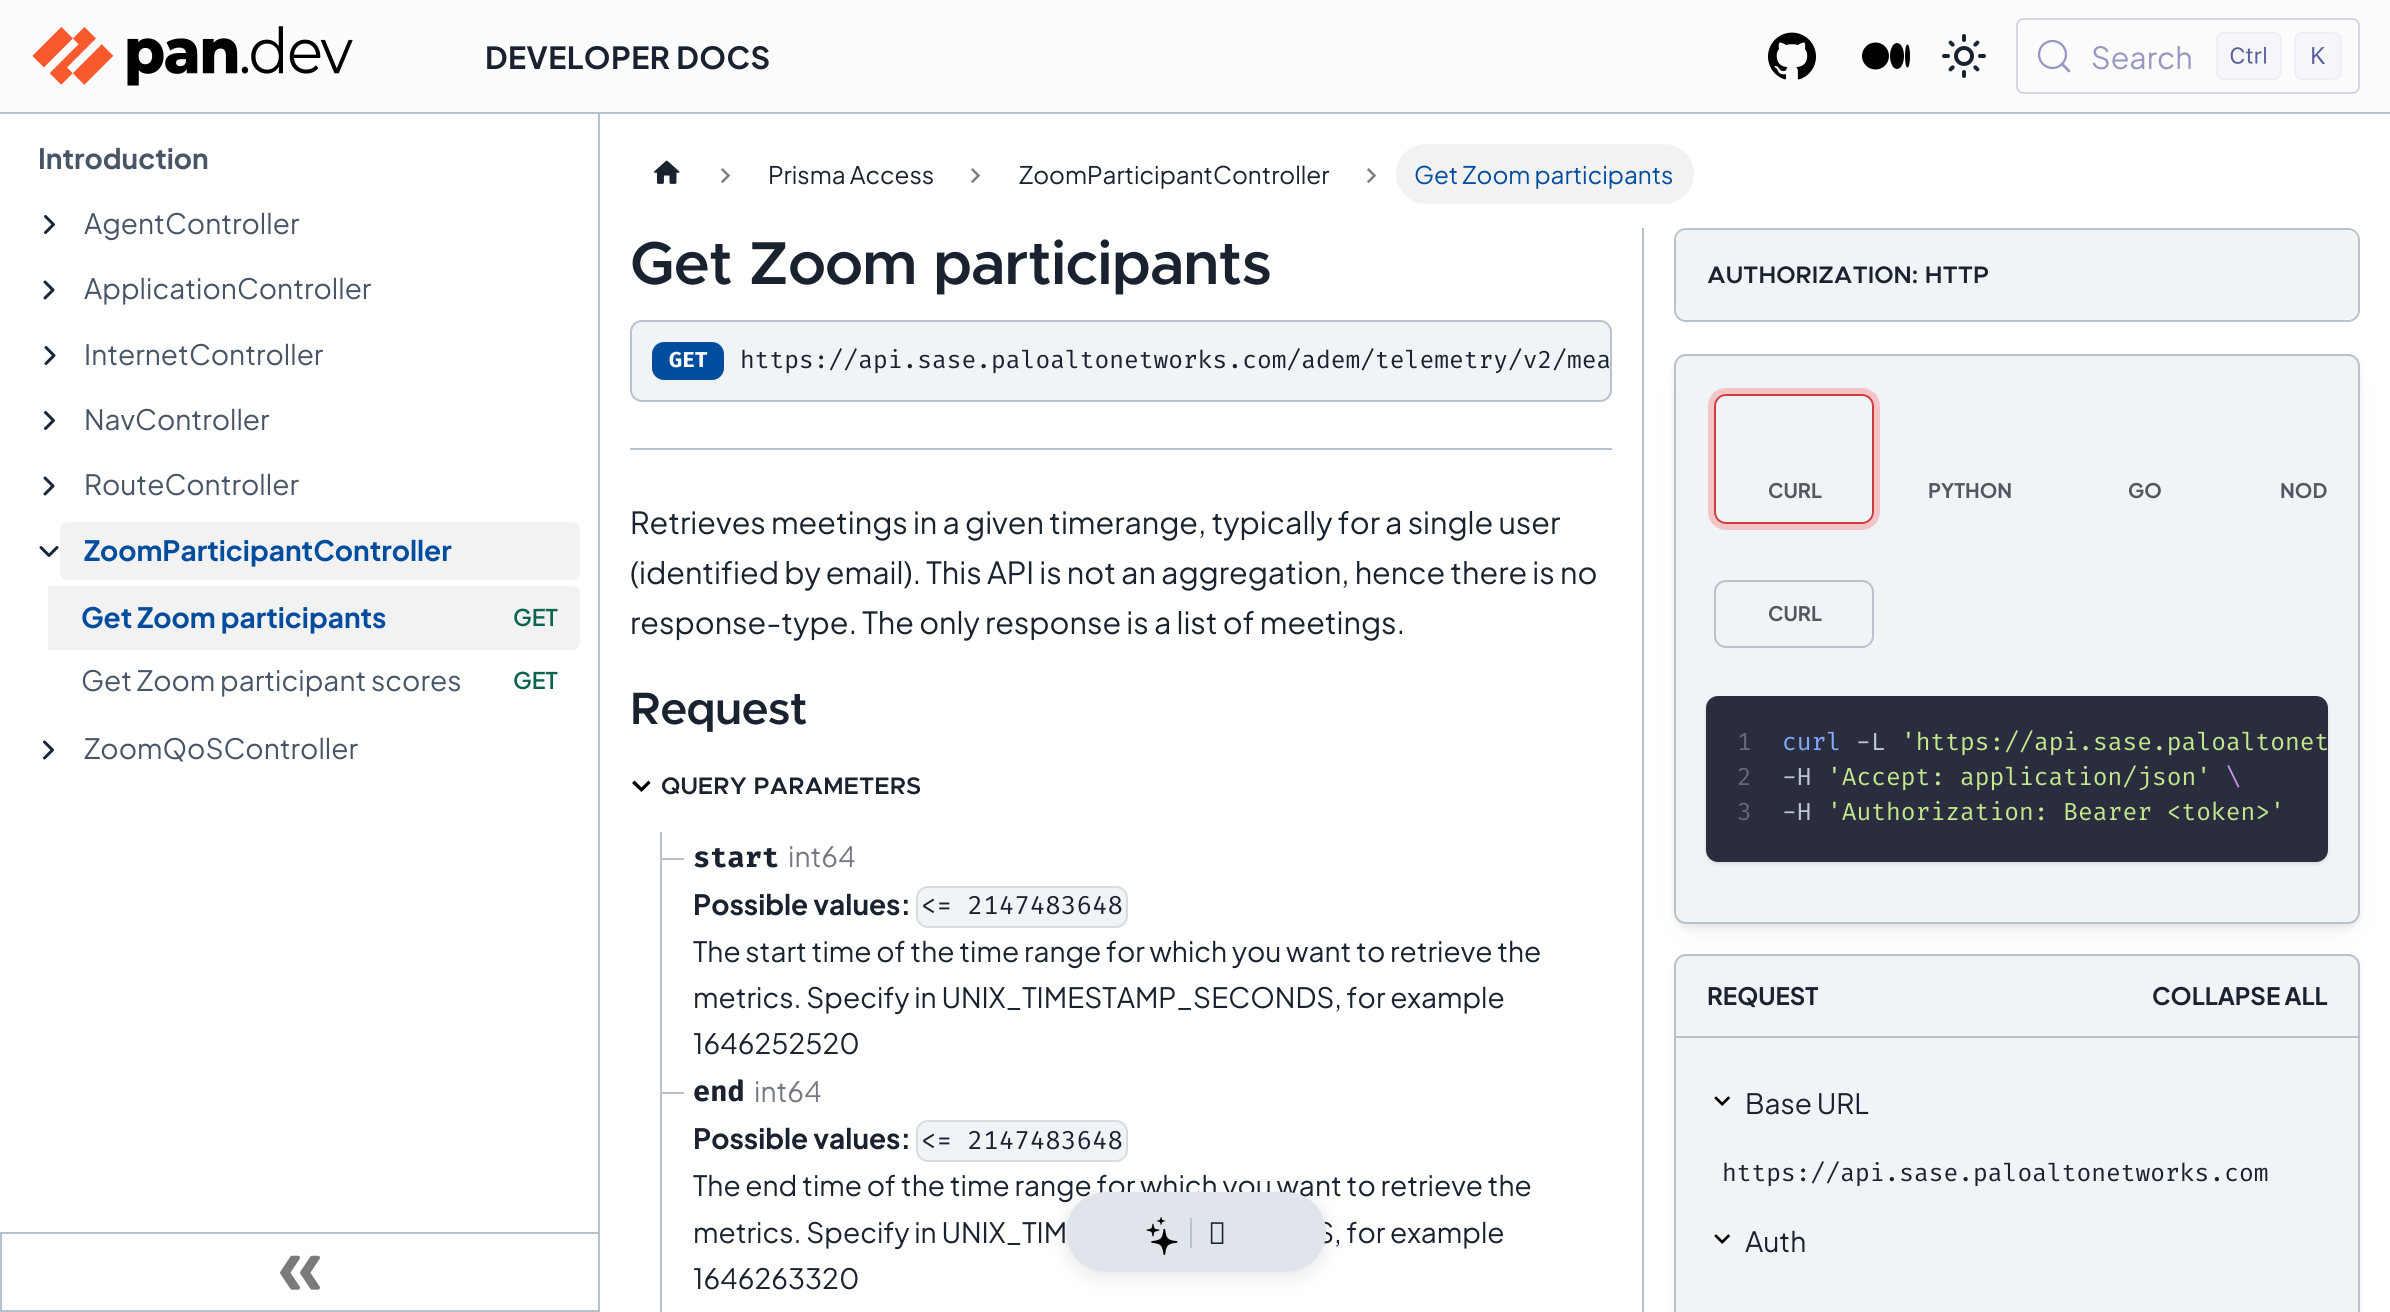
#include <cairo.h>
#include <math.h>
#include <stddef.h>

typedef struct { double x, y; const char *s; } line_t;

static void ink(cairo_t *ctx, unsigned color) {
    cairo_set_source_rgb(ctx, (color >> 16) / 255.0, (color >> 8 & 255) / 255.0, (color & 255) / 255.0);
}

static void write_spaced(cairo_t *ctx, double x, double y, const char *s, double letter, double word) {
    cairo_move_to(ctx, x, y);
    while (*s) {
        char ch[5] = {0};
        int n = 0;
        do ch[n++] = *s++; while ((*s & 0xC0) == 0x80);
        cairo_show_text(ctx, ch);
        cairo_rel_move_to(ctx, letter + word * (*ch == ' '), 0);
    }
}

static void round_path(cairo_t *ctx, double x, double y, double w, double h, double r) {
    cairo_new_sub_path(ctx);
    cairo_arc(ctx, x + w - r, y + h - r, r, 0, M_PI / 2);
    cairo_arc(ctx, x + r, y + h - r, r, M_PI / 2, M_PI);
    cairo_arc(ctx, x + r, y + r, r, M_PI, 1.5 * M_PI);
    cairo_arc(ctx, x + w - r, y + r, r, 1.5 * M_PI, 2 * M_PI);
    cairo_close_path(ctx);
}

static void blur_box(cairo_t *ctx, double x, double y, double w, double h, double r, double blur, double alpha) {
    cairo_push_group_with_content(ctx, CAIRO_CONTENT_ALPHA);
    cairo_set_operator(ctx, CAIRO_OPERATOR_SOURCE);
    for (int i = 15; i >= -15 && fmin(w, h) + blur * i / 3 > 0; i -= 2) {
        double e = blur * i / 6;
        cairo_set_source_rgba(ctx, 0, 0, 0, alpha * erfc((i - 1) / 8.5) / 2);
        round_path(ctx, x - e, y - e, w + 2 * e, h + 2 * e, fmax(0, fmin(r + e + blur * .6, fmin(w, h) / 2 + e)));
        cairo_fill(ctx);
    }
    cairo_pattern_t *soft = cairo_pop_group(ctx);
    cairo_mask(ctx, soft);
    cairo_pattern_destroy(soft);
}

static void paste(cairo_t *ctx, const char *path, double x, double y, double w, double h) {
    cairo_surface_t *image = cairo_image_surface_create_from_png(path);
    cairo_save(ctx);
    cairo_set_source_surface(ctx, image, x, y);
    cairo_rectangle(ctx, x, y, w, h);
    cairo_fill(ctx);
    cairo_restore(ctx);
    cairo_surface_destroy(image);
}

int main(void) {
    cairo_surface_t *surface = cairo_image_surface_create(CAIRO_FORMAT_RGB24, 2390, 1312);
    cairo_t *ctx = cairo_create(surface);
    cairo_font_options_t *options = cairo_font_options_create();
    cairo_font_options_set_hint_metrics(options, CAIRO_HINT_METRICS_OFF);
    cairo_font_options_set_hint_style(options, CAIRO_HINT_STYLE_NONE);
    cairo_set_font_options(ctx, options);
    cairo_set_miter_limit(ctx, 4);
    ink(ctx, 0xFFFFFF);
    cairo_paint(ctx);
    ink(ctx, 0xFCFCFD);
    cairo_rectangle(ctx, 0, 0, 2390, 112);
    cairo_fill(ctx);
    ink(ctx, 0xB8C1CC);
    cairo_rectangle(ctx, 0, 112, 2390, 2);
    cairo_fill(ctx);
    paste(ctx, "media/1.png", 32, 26, 321, 60);
    cairo_select_font_face(ctx, "Plus Jakarta Sans", CAIRO_FONT_SLANT_NORMAL, CAIRO_FONT_WEIGHT_BOLD);
    cairo_set_font_size(ctx, 30.4);
    ink(ctx, 0x19222E);
    write_spaced(ctx, 485, 69, "DEVELOPER DOCS", 0.5, 0);
    paste(ctx, "media/2.png", 1768, 32, 48, 48);
    ink(ctx, 0x000000);
    cairo_arc(ctx, 1875.5, 56, 13.5, 0, 2 * M_PI);
    cairo_fill(ctx);
    cairo_new_path(ctx);
    cairo_move_to(ctx, 1897, 43);
    cairo_curve_to(ctx, 1901, 43, 1904, 49, 1904, 56);
    cairo_curve_to(ctx, 1904, 63, 1901, 69, 1897, 69);
    cairo_curve_to(ctx, 1893, 69, 1890, 63, 1890, 56);
    cairo_curve_to(ctx, 1890, 49, 1893, 43, 1897, 43);
    cairo_close_path(ctx);
    cairo_fill(ctx);
    cairo_new_path(ctx);
    cairo_move_to(ctx, 1907.5, 44.5);
    cairo_curve_to(ctx, 1909, 44.5, 1910, 49.5, 1910, 56);
    cairo_curve_to(ctx, 1910, 62.5, 1909, 67.5, 1907.5, 67.5);
    cairo_curve_to(ctx, 1906, 67.5, 1905, 62.5, 1905, 56);
    cairo_curve_to(ctx, 1905, 49.5, 1906, 44.5, 1907.5, 44.5);
    cairo_close_path(ctx);
    cairo_fill(ctx);
    paste(ctx, "media/3.png", 1942, 34, 44, 44);
    round_path(ctx, 2017, 19, 342, 74, 7);
    ink(ctx, 0xD6D6E7);
    cairo_stroke(ctx);
    cairo_arc(ctx, 2052.5, 54.5, 13.5, 0, 2 * M_PI);
    ink(ctx, 0x9698C3);
    cairo_set_line_width(ctx, 2.3);
    cairo_stroke(ctx);
    cairo_new_path(ctx);
    cairo_move_to(ctx, 2069, 71);
    cairo_line_to(ctx, 2062, 64);
    cairo_set_line_width(ctx, 2.7);
    cairo_set_line_cap(ctx, CAIRO_LINE_CAP_ROUND);
    cairo_set_line_join(ctx, CAIRO_LINE_JOIN_ROUND);
    cairo_stroke(ctx);
    cairo_select_font_face(ctx, "Plus Jakarta Sans", CAIRO_FONT_SLANT_NORMAL, CAIRO_FONT_WEIGHT_NORMAL);
    cairo_move_to(ctx, 2091, 69);
    cairo_show_text(ctx, "Search");
    ink(ctx, 0xF5F5FA);
    round_path(ctx, 2216, 32, 66, 48, 8);
    cairo_fill(ctx);
    round_path(ctx, 2217, 33, 64, 46, 7);
    cairo_set_source_rgba(ctx, 0.839, 0.839, 0.906, 0.2);
    cairo_set_line_width(ctx, 2);
    cairo_set_line_cap(ctx, CAIRO_LINE_CAP_BUTT);
    cairo_set_line_join(ctx, CAIRO_LINE_JOIN_MITER);
    cairo_stroke(ctx);
    paste(ctx, "media/4.png", 2230, 46, 36, 18);
    ink(ctx, 0xF5F5FA);
    round_path(ctx, 2294, 32, 48, 48, 8);
    cairo_fill(ctx);
    round_path(ctx, 2295, 33, 46, 46, 7);
    cairo_set_source_rgba(ctx, 0.839, 0.839, 0.906, 0.2);
    cairo_stroke(ctx);
    paste(ctx, "media/5.png", 2312, 47, 13, 17);
    ink(ctx, 0xB8C1CC);
    cairo_rectangle(ctx, 598, 114, 2, 1118);
    cairo_fill(ctx);
    cairo_select_font_face(ctx, "Plus Jakarta Sans", CAIRO_FONT_SLANT_NORMAL, CAIRO_FONT_WEIGHT_BOLD);
    cairo_set_font_size(ctx, 28);
    ink(ctx, 0x475566);
    cairo_move_to(ctx, 38, 169);
    cairo_show_text(ctx, "Introduction");
    cairo_new_path(ctx);
    cairo_move_to(ctx, 45.5, 232.5);
    cairo_line_to(ctx, 53.5, 224.5);
    cairo_line_to(ctx, 45.5, 216.5);
    ink(ctx, 0x1B2738);
    cairo_set_line_width(ctx, 3);
    cairo_set_line_cap(ctx, CAIRO_LINE_CAP_ROUND);
    cairo_set_line_join(ctx, CAIRO_LINE_JOIN_ROUND);
    cairo_stroke(ctx);
    cairo_select_font_face(ctx, "Plus Jakarta Sans", CAIRO_FONT_SLANT_NORMAL, CAIRO_FONT_WEIGHT_NORMAL);
    ink(ctx, 0x475566);
    cairo_move_to(ctx, 84, 234);
    cairo_show_text(ctx, "AgentController");
    cairo_new_path(ctx);
    cairo_move_to(ctx, 45, 298);
    cairo_line_to(ctx, 53, 290);
    cairo_line_to(ctx, 45, 282);
    ink(ctx, 0x1B2738);
    cairo_stroke(ctx);
    ink(ctx, 0x475566);
    cairo_move_to(ctx, 84, 299);
    cairo_show_text(ctx, "ApplicationController");
    cairo_new_path(ctx);
    cairo_move_to(ctx, 46, 363.5);
    cairo_line_to(ctx, 54, 355.5);
    cairo_line_to(ctx, 46, 347.5);
    ink(ctx, 0x1B2738);
    cairo_stroke(ctx);
    ink(ctx, 0x475566);
    cairo_move_to(ctx, 84, 365);
    cairo_show_text(ctx, "InternetController");
    cairo_new_path(ctx);
    cairo_move_to(ctx, 45.5, 428.5);
    cairo_line_to(ctx, 53.5, 420.5);
    cairo_line_to(ctx, 45.5, 412.5);
    ink(ctx, 0x1B2738);
    cairo_stroke(ctx);
    ink(ctx, 0x475566);
    cairo_move_to(ctx, 84, 430);
    cairo_show_text(ctx, "NavController");
    cairo_new_path(ctx);
    cairo_move_to(ctx, 45, 494);
    cairo_line_to(ctx, 53, 486);
    cairo_line_to(ctx, 45, 478);
    ink(ctx, 0x1B2738);
    cairo_stroke(ctx);
    ink(ctx, 0x475566);
    cairo_move_to(ctx, 84, 495);
    cairo_show_text(ctx, "RouteController");
    cairo_new_path(ctx);
    cairo_move_to(ctx, 41, 547.5);
    cairo_line_to(ctx, 49, 555.5);
    cairo_line_to(ctx, 57, 547.5);
    ink(ctx, 0x1B2738);
    cairo_stroke(ctx);
    ink(ctx, 0xF2F2F2);
    round_path(ctx, 60, 522, 520, 58, 8);
    cairo_fill(ctx);
    cairo_select_font_face(ctx, "Plus Jakarta Sans", CAIRO_FONT_SLANT_NORMAL, CAIRO_FONT_WEIGHT_BOLD);
    ink(ctx, 0x004C9D);
    cairo_move_to(ctx, 84, 561);
    cairo_show_text(ctx, "ZoomParticipantController");
    ink(ctx, 0xF2F2F2);
    cairo_new_path(ctx);
    cairo_move_to(ctx, 48, 586);
    cairo_line_to(ctx, 572, 586);
    cairo_curve_to(ctx, 576.5, 586, 580, 589.5, 580, 594);
    cairo_line_to(ctx, 580, 642);
    cairo_curve_to(ctx, 580, 646.5, 576.5, 650, 572, 650);
    cairo_line_to(ctx, 48, 650);
    cairo_close_path(ctx);
    cairo_fill(ctx);
    ink(ctx, 0x004C9D);
    cairo_move_to(ctx, 81, 628);
    cairo_show_text(ctx, "Get Zoom participants");
    cairo_select_font_face(ctx, "Plus Jakarta Sans SemiBold", CAIRO_FONT_SLANT_NORMAL, CAIRO_FONT_WEIGHT_NORMAL);
    cairo_set_font_size(ctx, 23);
    ink(ctx, 0x0A644E);
    cairo_move_to(ctx, 513, 626);
    cairo_show_text(ctx, "GET");
    cairo_select_font_face(ctx, "Plus Jakarta Sans", CAIRO_FONT_SLANT_NORMAL, CAIRO_FONT_WEIGHT_NORMAL);
    cairo_set_font_size(ctx, 28);
    ink(ctx, 0x475566);
    cairo_move_to(ctx, 81, 691);
    cairo_show_text(ctx, "Get Zoom participant scores");
    cairo_select_font_face(ctx, "Plus Jakarta Sans SemiBold", CAIRO_FONT_SLANT_NORMAL, CAIRO_FONT_WEIGHT_NORMAL);
    cairo_set_font_size(ctx, 23);
    ink(ctx, 0x0A644E);
    cairo_move_to(ctx, 513, 689);
    cairo_show_text(ctx, "GET");
    cairo_new_path(ctx);
    cairo_move_to(ctx, 44.5, 758);
    cairo_line_to(ctx, 52.5, 750);
    cairo_line_to(ctx, 44.5, 742);
    ink(ctx, 0x1B2738);
    cairo_stroke(ctx);
    cairo_select_font_face(ctx, "Plus Jakarta Sans", CAIRO_FONT_SLANT_NORMAL, CAIRO_FONT_WEIGHT_NORMAL);
    cairo_set_font_size(ctx, 28);
    ink(ctx, 0x475566);
    cairo_move_to(ctx, 84, 759);
    cairo_show_text(ctx, "ZoomQoSController");
    cairo_rectangle(ctx, 1, 1233, 598, 78);
    ink(ctx, 0xB8C1CC);
    cairo_set_line_width(ctx, 2);
    cairo_set_line_cap(ctx, CAIRO_LINE_CAP_BUTT);
    cairo_set_line_join(ctx, CAIRO_LINE_JOIN_MITER);
    cairo_stroke(ctx);
    paste(ctx, "media/6.png", 280, 1255, 40, 35);
    paste(ctx, "media/7.png", 654, 160, 26, 24);
    paste(ctx, "media/8.png", 721, 168, 10, 15);
    cairo_set_font_size(ctx, 24.25);
    ink(ctx, 0x19222E);
    cairo_move_to(ctx, 768, 184);
    cairo_show_text(ctx, "Prisma Access");
    paste(ctx, "media/8.png", 971, 168, 10, 15);
    cairo_move_to(ctx, 1019, 184);
    cairo_show_text(ctx, "ZoomParticipantController");
    paste(ctx, "media/8.png", 1367, 168, 10, 15);
    ink(ctx, 0xF2F2F2);
    round_path(ctx, 1396, 144, 298, 60, 30);
    cairo_fill(ctx);
    ink(ctx, 0x004C9D);
    cairo_move_to(ctx, 1414, 184);
    cairo_show_text(ctx, "Get Zoom participants");
    ink(ctx, 0xB8C1CC);
    cairo_rectangle(ctx, 1642, 228, 2, 1084);
    cairo_fill(ctx);
    cairo_select_font_face(ctx, "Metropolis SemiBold", CAIRO_FONT_SLANT_NORMAL, CAIRO_FONT_WEIGHT_NORMAL);
    cairo_set_font_size(ctx, 60.75);
    ink(ctx, 0x19222E);
    cairo_move_to(ctx, 630, 284);
    cairo_show_text(ctx, "Get Zoom participants");
    ink(ctx, 0xF0F4F7);
    round_path(ctx, 631, 321, 980, 80, 11);
    cairo_fill_preserve(ctx);
    ink(ctx, 0xB8C1CC);
    cairo_stroke(ctx);
    ink(ctx, 0x004C9D);
    round_path(ctx, 653, 343, 70, 36, 11);
    cairo_fill_preserve(ctx);
    cairo_stroke(ctx);
    cairo_select_font_face(ctx, "Fira Code", CAIRO_FONT_SLANT_NORMAL, CAIRO_FONT_WEIGHT_BOLD);
    cairo_set_font_size(ctx, 21);
    ink(ctx, 0xFFFFFF);
    cairo_move_to(ctx, 669, 367);
    cairo_show_text(ctx, "GET");
    cairo_select_font_face(ctx, "Fira Code", CAIRO_FONT_SLANT_NORMAL, CAIRO_FONT_WEIGHT_NORMAL);
    cairo_set_font_size(ctx, 24);
    ink(ctx, 0x19222E);
    cairo_move_to(ctx, 740, 368);
    cairo_show_text(ctx, "https://api.sase.paloaltonetworks.com/adem/telemetry/v2/mea");
    ink(ctx, 0xB8C1CC);
    cairo_rectangle(ctx, 630, 448, 982, 2);
    cairo_fill(ctx);
    cairo_select_font_face(ctx, "Plus Jakarta Sans", CAIRO_FONT_SLANT_NORMAL, CAIRO_FONT_WEIGHT_NORMAL);
    cairo_set_font_size(ctx, 30.4);
    ink(ctx, 0x19222E);
    {
        static const line_t items[] = {
            {630, 534, "Retrieves meetings in a given timerange, typically for a single user"},
            {630, 584, "(identified by email). This API is not an aggregation, hence there is no"},
            {630, 634, "response-type. The only response is a list of meetings."},
        };
        for (size_t i = 0; i < sizeof items / sizeof *items; i++) {
            cairo_move_to(ctx, items[i].x, items[i].y);
            cairo_show_text(ctx, items[i].s);
        }
    }
    cairo_select_font_face(ctx, "Metropolis SemiBold", CAIRO_FONT_SLANT_NORMAL, CAIRO_FONT_WEIGHT_NORMAL);
    cairo_set_font_size(ctx, 45.5);
    cairo_move_to(ctx, 630, 724);
    cairo_show_text(ctx, "Request");
    ink(ctx, 0x000000);
    cairo_new_path(ctx);
    cairo_move_to(ctx, 648.5, 780.5);
    cairo_line_to(ctx, 641.5, 787.5);
    cairo_line_to(ctx, 634.5, 780.5);
    cairo_line_to(ctx, 632, 783);
    cairo_line_to(ctx, 641.5, 792);
    cairo_line_to(ctx, 650.5, 783);
    cairo_close_path(ctx);
    cairo_fill(ctx);
    cairo_set_font_size(ctx, 24);
    ink(ctx, 0x19222E);
    cairo_move_to(ctx, 661, 794);
    cairo_show_text(ctx, "QUERY PARAMETERS");
    ink(ctx, 0xB8C1CC);
    cairo_rectangle(ctx, 660, 832, 2, 480);
    cairo_fill(ctx);
    cairo_rectangle(ctx, 662, 858, 22, 2);
    cairo_fill(ctx);
    cairo_select_font_face(ctx, "Fira Code", CAIRO_FONT_SLANT_NORMAL, CAIRO_FONT_WEIGHT_BOLD);
    cairo_set_font_size(ctx, 28);
    ink(ctx, 0x19222E);
    cairo_move_to(ctx, 693, 867);
    cairo_show_text(ctx, "start");
    cairo_select_font_face(ctx, "Plus Jakarta Sans", CAIRO_FONT_SLANT_NORMAL, CAIRO_FONT_WEIGHT_NORMAL);
    ink(ctx, 0x757A82);
    cairo_move_to(ctx, 788, 867);
    cairo_show_text(ctx, "int64");
    cairo_select_font_face(ctx, "Plus Jakarta Sans", CAIRO_FONT_SLANT_NORMAL, CAIRO_FONT_WEIGHT_BOLD);
    ink(ctx, 0x19222E);
    cairo_move_to(ctx, 693, 915);
    cairo_show_text(ctx, "Possible values:");
    ink(ctx, 0xF0F4F7);
    round_path(ctx, 916, 886, 212, 42, 12);
    cairo_fill(ctx);
    round_path(ctx, 917, 887, 210, 40, 11);
    cairo_set_source_rgba(ctx, 0, 0, 0, 0.1);
    cairo_stroke(ctx);
    cairo_select_font_face(ctx, "Fira Code", CAIRO_FONT_SLANT_NORMAL, CAIRO_FONT_WEIGHT_NORMAL);
    cairo_set_font_size(ctx, 25.25);
    ink(ctx, 0x19222E);
    cairo_move_to(ctx, 921, 914);
    cairo_show_text(ctx, "<= 2147483648");
    cairo_select_font_face(ctx, "Plus Jakarta Sans", CAIRO_FONT_SLANT_NORMAL, CAIRO_FONT_WEIGHT_NORMAL);
    cairo_set_font_size(ctx, 28);
    {
        static const line_t items[] = {
            {693, 962, "The start time of the time range for which you want to retrieve the"},
            {693, 1008, "metrics. Specify in UNIX_TIMESTAMP_SECONDS, for example"},
            {693, 1054, "1646252520"},
        };
        for (size_t i = 0; i < sizeof items / sizeof *items; i++) {
            cairo_move_to(ctx, items[i].x, items[i].y);
            cairo_show_text(ctx, items[i].s);
        }
    }
    ink(ctx, 0xB8C1CC);
    cairo_rectangle(ctx, 662, 1092, 22, 2);
    cairo_fill(ctx);
    cairo_select_font_face(ctx, "Fira Code", CAIRO_FONT_SLANT_NORMAL, CAIRO_FONT_WEIGHT_BOLD);
    ink(ctx, 0x19222E);
    cairo_move_to(ctx, 693, 1101);
    cairo_show_text(ctx, "end");
    cairo_select_font_face(ctx, "Plus Jakarta Sans", CAIRO_FONT_SLANT_NORMAL, CAIRO_FONT_WEIGHT_NORMAL);
    ink(ctx, 0x757A82);
    cairo_move_to(ctx, 754, 1102);
    cairo_show_text(ctx, "int64");
    cairo_select_font_face(ctx, "Plus Jakarta Sans", CAIRO_FONT_SLANT_NORMAL, CAIRO_FONT_WEIGHT_BOLD);
    ink(ctx, 0x19222E);
    cairo_move_to(ctx, 693, 1149);
    cairo_show_text(ctx, "Possible values:");
    ink(ctx, 0xF0F4F7);
    round_path(ctx, 916, 1120, 212, 42, 12);
    cairo_fill(ctx);
    round_path(ctx, 917, 1121, 210, 40, 11);
    cairo_set_source_rgba(ctx, 0, 0, 0, 0.1);
    cairo_stroke(ctx);
    cairo_select_font_face(ctx, "Fira Code", CAIRO_FONT_SLANT_NORMAL, CAIRO_FONT_WEIGHT_NORMAL);
    cairo_set_font_size(ctx, 25.25);
    ink(ctx, 0x19222E);
    cairo_move_to(ctx, 921, 1149);
    cairo_show_text(ctx, "<= 2147483648");
    cairo_select_font_face(ctx, "Plus Jakarta Sans", CAIRO_FONT_SLANT_NORMAL, CAIRO_FONT_WEIGHT_NORMAL);
    cairo_set_font_size(ctx, 28);
    {
        static const line_t items[] = {
            {693, 1196, "The end time of the time range for which you want to retrieve the"},
            {693, 1243, "metrics. Specify in UNIX_TIM"},
            {1316, 1243, "S, for example"},
            {693, 1289, "1646263320"},
        };
        for (size_t i = 0; i < sizeof items / sizeof *items; i++) {
            cairo_move_to(ctx, items[i].x, items[i].y);
            cairo_show_text(ctx, items[i].s);
        }
    }
    round_path(ctx, 1675, 229, 684, 92, 11);
    ink(ctx, 0xB8C1CC);
    cairo_stroke(ctx);
    ink(ctx, 0xF0F4F7);
    round_path(ctx, 1676, 230, 682, 90, 12);
    cairo_fill(ctx);
    cairo_select_font_face(ctx, "Metropolis SemiBold", CAIRO_FONT_SLANT_NORMAL, CAIRO_FONT_WEIGHT_NORMAL);
    cairo_set_font_size(ctx, 24);
    ink(ctx, 0x19222E);
    cairo_move_to(ctx, 1707, 283);
    cairo_show_text(ctx, "AUTHORIZATION: HTTP");
    ink(ctx, 0x656A76);
    blur_box(ctx, 1694, 390, 646, 530, 0, 16, 0.2);
    blur_box(ctx, 1674, 358, 686, 570, 12, 3, 0.1);
    ink(ctx, 0xF0F4F7);
    round_path(ctx, 1675, 355, 684, 568, 11);
    cairo_fill_preserve(ctx);
    ink(ctx, 0xB8C1CC);
    cairo_stroke(ctx);
    round_path(ctx, 1711, 391, 166, 136, 15);
    ink(ctx, 0xF3C5C9);
    cairo_set_line_width(ctx, 6);
    cairo_stroke(ctx);
    round_path(ctx, 1715, 395, 158, 128, 11);
    ink(ctx, 0xD13C3C);
    cairo_set_line_width(ctx, 2);
    cairo_stroke(ctx);
    cairo_select_font_face(ctx, "Plus Jakarta Sans", CAIRO_FONT_SLANT_NORMAL, CAIRO_FONT_WEIGHT_BOLD);
    cairo_set_font_size(ctx, 20);
    ink(ctx, 0x525860);
    {
        static const line_t items[] = {
            {1768, 498, "CURL"},
            {1928, 498, "PYTHON"},
            {2128, 498, "GO"},
            {2280, 498, "NOD"},
        };
        for (size_t i = 0; i < sizeof items / sizeof *items; i++) {
            cairo_move_to(ctx, items[i].x, items[i].y);
            cairo_show_text(ctx, items[i].s);
        }
    }
    round_path(ctx, 1715, 581, 158, 66, 11);
    ink(ctx, 0xB8C1CC);
    cairo_stroke(ctx);
    ink(ctx, 0x525860);
    cairo_move_to(ctx, 1768, 621);
    cairo_show_text(ctx, "CURL");
    ink(ctx, 0x000000);
    blur_box(ctx, 1706, 698, 622, 166, 12, 2, 0.1);
    ink(ctx, 0x292D3E);
    round_path(ctx, 1706, 696, 622, 166, 12);
    cairo_fill(ctx);
    cairo_select_font_face(ctx, "Fira Code", CAIRO_FONT_SLANT_NORMAL, CAIRO_FONT_WEIGHT_NORMAL);
    cairo_set_font_size(ctx, 24);
    ink(ctx, 0x656B7A);
    cairo_move_to(ctx, 1737, 750);
    cairo_show_text(ctx, "1");
    ink(ctx, 0x82AAFF);
    cairo_move_to(ctx, 1782, 750);
    cairo_show_text(ctx, "curl");
    ink(ctx, 0xBFC7D5);
    cairo_move_to(ctx, 1856, 750);
    cairo_show_text(ctx, "-L");
    ink(ctx, 0xC3E88D);
    cairo_move_to(ctx, 1901, 750);
    cairo_show_text(ctx, "'https://api.sase.paloaltonet");
    ink(ctx, 0x656B7A);
    cairo_move_to(ctx, 1737, 785);
    cairo_show_text(ctx, "2");
    ink(ctx, 0xBFC7D5);
    cairo_move_to(ctx, 1782, 785);
    cairo_show_text(ctx, "-H");
    ink(ctx, 0xC3E88D);
    cairo_move_to(ctx, 1827, 785);
    cairo_show_text(ctx, "'Accept: application/json'");
    ink(ctx, 0xC792EA);
    cairo_move_to(ctx, 2226, 785);
    cairo_show_text(ctx, "\\");
    ink(ctx, 0x656B7A);
    cairo_move_to(ctx, 1737, 820);
    cairo_show_text(ctx, "3");
    ink(ctx, 0xBFC7D5);
    cairo_move_to(ctx, 1782, 820);
    cairo_show_text(ctx, "-H");
    ink(ctx, 0xC3E88D);
    cairo_move_to(ctx, 1827, 820);
    cairo_show_text(ctx, "'Authorization: Bearer <token>'");
    ink(ctx, 0x656A76);
    blur_box(ctx, 1674, 958, 686, 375, 12, 3, 0.1);
    ink(ctx, 0xF0F4F7);
    cairo_new_path(ctx);
    cairo_move_to(ctx, 1686, 954);
    cairo_line_to(ctx, 2348, 954);
    cairo_curve_to(ctx, 2354.5, 954, 2360, 959.5, 2360, 966);
    cairo_line_to(ctx, 2360, 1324);
    cairo_line_to(ctx, 1674, 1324);
    cairo_line_to(ctx, 1674, 966);
    cairo_curve_to(ctx, 1674, 959.5, 1679.5, 954, 1686, 954);
    cairo_close_path(ctx);
    cairo_fill(ctx);
    round_path(ctx, 1675, 955, 684, 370, 11);
    ink(ctx, 0xB8C1CC);
    cairo_stroke(ctx);
    cairo_rectangle(ctx, 1676, 1036, 682, 2);
    cairo_fill(ctx);
    cairo_select_font_face(ctx, "Plus Jakarta Sans", CAIRO_FONT_SLANT_NORMAL, CAIRO_FONT_WEIGHT_BOLD);
    ink(ctx, 0x19222E);
    cairo_move_to(ctx, 1707, 1005);
    cairo_show_text(ctx, "REQUEST");
    cairo_move_to(ctx, 2152, 1005);
    cairo_show_text(ctx, "COLLAPSE ALL");
    paste(ctx, "media/9.png", 1714, 1096, 17, 10);
    cairo_select_font_face(ctx, "Plus Jakarta Sans", CAIRO_FONT_SLANT_NORMAL, CAIRO_FONT_WEIGHT_NORMAL);
    cairo_set_font_size(ctx, 28);
    cairo_move_to(ctx, 1745, 1114);
    cairo_show_text(ctx, "Base URL");
    cairo_select_font_face(ctx, "Fira Code", CAIRO_FONT_SLANT_NORMAL, CAIRO_FONT_WEIGHT_NORMAL);
    cairo_set_font_size(ctx, 24);
    cairo_move_to(ctx, 1722, 1181);
    cairo_show_text(ctx, "https://api.sase.paloaltonetworks.com");
    paste(ctx, "media/10.png", 1714, 1234, 17, 10);
    cairo_select_font_face(ctx, "Plus Jakarta Sans", CAIRO_FONT_SLANT_NORMAL, CAIRO_FONT_WEIGHT_NORMAL);
    cairo_set_font_size(ctx, 28);
    cairo_move_to(ctx, 1745, 1252);
    cairo_show_text(ctx, "Auth");
    ink(ctx, 0x000000);
    blur_box(ctx, 1066, 1196, 260, 80, 40, 10, 0.1);
    ink(ctx, 0xDFE5EB);
    round_path(ctx, 1066, 1192, 260, 80, 40);
    cairo_fill(ctx);
    paste(ctx, "media/11.png", 1146, 1217, 32, 38);
    ink(ctx, 0xB8C1CC);
    cairo_rectangle(ctx, 1190, 1218, 2, 30);
    cairo_fill(ctx);
    paste(ctx, "media/12.png", 1210, 1222, 14, 22);
    cairo_surface_write_to_png(surface, "image.png");
    cairo_font_options_destroy(options);
    cairo_destroy(ctx);
    cairo_surface_destroy(surface);
    return 0;
}
